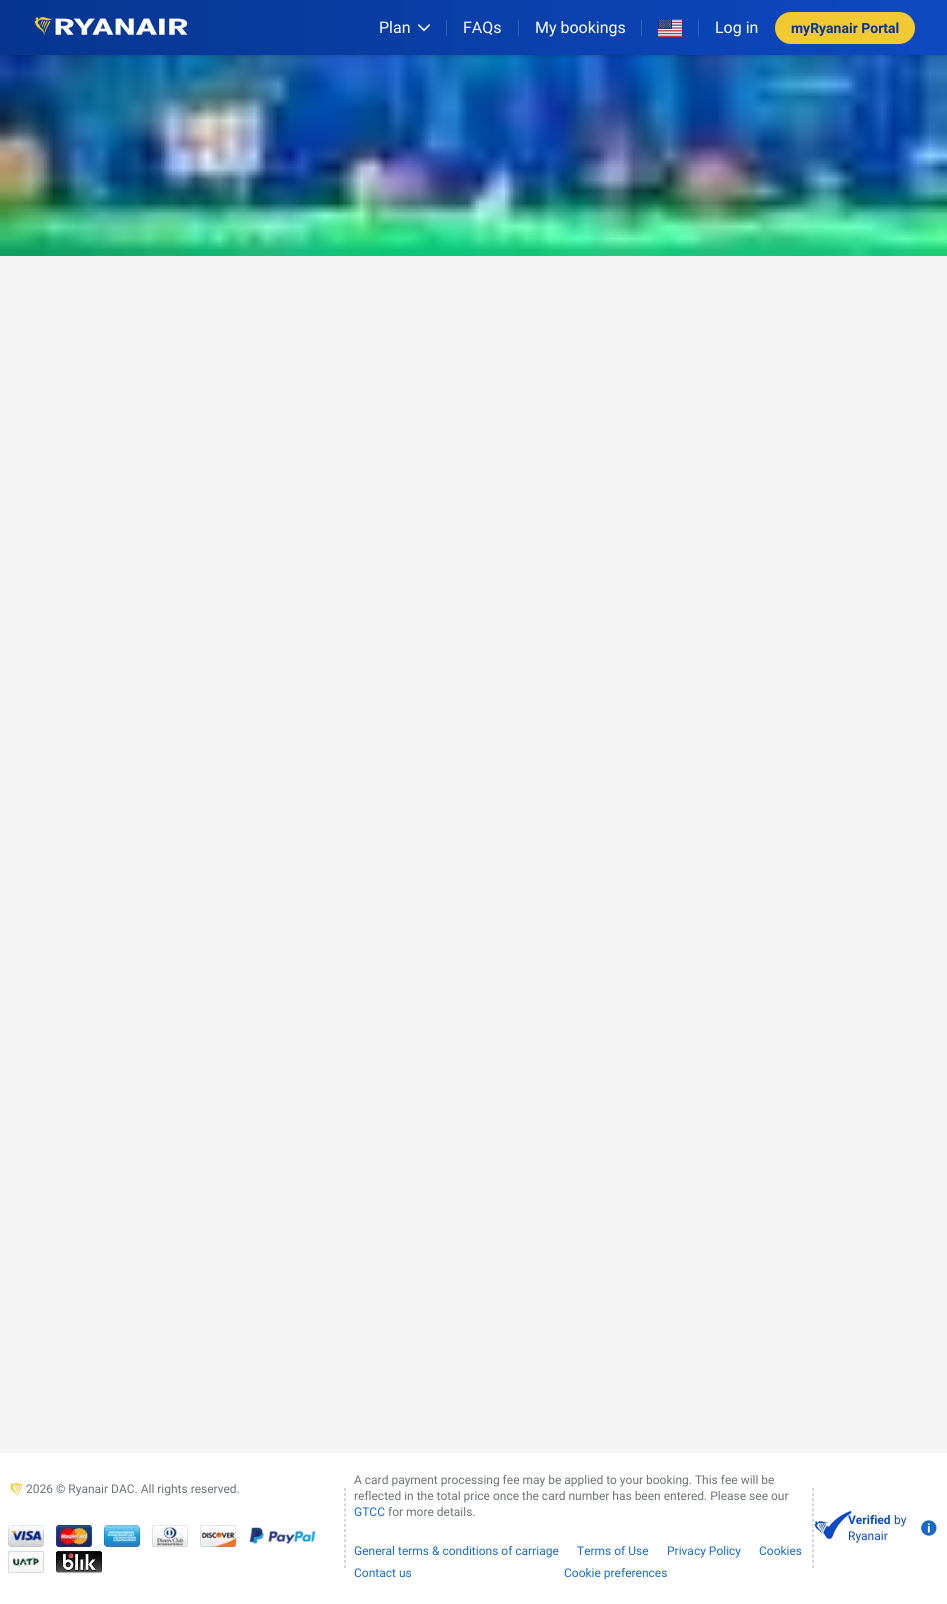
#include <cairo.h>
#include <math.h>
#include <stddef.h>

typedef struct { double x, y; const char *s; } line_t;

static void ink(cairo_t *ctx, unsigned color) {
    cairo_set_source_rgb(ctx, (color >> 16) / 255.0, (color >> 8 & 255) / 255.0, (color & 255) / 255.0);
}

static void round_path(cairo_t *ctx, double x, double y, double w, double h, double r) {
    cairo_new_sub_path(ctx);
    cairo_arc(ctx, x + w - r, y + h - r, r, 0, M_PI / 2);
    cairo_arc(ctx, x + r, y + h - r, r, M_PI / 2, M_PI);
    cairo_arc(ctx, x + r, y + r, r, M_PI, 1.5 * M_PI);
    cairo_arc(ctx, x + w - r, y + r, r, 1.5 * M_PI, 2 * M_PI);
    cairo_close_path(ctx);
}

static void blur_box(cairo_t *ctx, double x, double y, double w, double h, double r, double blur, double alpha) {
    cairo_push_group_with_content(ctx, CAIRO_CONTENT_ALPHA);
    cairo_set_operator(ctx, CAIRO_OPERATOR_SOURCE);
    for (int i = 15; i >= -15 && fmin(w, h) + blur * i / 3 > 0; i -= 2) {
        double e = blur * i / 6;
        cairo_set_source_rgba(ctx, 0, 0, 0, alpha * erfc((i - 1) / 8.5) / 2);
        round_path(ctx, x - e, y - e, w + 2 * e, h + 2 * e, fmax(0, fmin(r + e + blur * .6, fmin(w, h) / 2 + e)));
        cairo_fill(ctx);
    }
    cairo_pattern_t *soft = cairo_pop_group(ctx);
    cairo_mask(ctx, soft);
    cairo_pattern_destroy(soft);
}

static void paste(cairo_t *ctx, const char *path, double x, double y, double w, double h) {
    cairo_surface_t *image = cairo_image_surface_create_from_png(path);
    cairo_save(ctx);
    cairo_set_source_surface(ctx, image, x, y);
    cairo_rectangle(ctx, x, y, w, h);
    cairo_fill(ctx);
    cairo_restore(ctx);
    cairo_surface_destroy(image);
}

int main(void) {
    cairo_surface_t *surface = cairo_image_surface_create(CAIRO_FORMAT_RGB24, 947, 1604);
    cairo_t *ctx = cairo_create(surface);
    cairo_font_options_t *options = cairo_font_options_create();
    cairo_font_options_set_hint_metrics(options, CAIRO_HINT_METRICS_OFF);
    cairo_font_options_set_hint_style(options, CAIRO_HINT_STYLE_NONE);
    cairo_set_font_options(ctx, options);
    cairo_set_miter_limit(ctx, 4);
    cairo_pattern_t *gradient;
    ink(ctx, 0xF4F4F4);
    cairo_paint(ctx);
    paste(ctx, "media/4.png", 0, 55, 947, 201);
    ink(ctx, 0x000000);
    blur_box(ctx, 0, 1, 947, 55, 0, 2, 0.2);
    gradient = cairo_pattern_create_linear(0, 28, 947, 27);
    cairo_pattern_add_color_stop_rgba(gradient, 0, 0.027, 0.208, 0.565, 1);
    cairo_pattern_add_color_stop_rgba(gradient, 1, 0.051, 0.286, 0.753, 1);
    cairo_set_source(ctx, gradient);
    cairo_pattern_destroy(gradient);
    cairo_rectangle(ctx, 0, 0, 947, 55);
    cairo_fill(ctx);
    paste(ctx, "media/1.png", 34, 17, 154, 18);
    cairo_select_font_face(ctx, "Roboto", CAIRO_FONT_SLANT_NORMAL, CAIRO_FONT_WEIGHT_NORMAL);
    cairo_set_font_size(ctx, 16);
    ink(ctx, 0xFFFFFF);
    cairo_move_to(ctx, 379, 33);
    cairo_show_text(ctx, "Plan");
    paste(ctx, "media/2.png", 418, 24, 12, 8);
    ink(ctx, 0x315DB5);
    cairo_rectangle(ctx, 446, 20, 1, 16);
    cairo_fill(ctx);
    ink(ctx, 0xFFFFFF);
    cairo_move_to(ctx, 463, 33);
    cairo_show_text(ctx, "FAQs");
    ink(ctx, 0x315FB8);
    cairo_rectangle(ctx, 518, 20, 1, 16);
    cairo_fill(ctx);
    ink(ctx, 0xFFFFFF);
    cairo_move_to(ctx, 535, 33);
    cairo_show_text(ctx, "My bookings");
    ink(ctx, 0x3261BD);
    cairo_rectangle(ctx, 641, 20, 1, 16);
    cairo_fill(ctx);
    paste(ctx, "media/3.png", 658, 19, 24, 18);
    ink(ctx, 0x3262BF);
    cairo_rectangle(ctx, 698, 20, 1, 16);
    cairo_fill(ctx);
    ink(ctx, 0xFFFFFF);
    cairo_move_to(ctx, 715, 33);
    cairo_show_text(ctx, "Log in");
    ink(ctx, 0xF1C933);
    round_path(ctx, 775, 12, 140, 32, 16);
    cairo_fill(ctx);
    cairo_select_font_face(ctx, "Roboto", CAIRO_FONT_SLANT_NORMAL, CAIRO_FONT_WEIGHT_BOLD);
    cairo_set_font_size(ctx, 14);
    ink(ctx, 0x073590);
    cairo_move_to(ctx, 791, 33);
    cairo_show_text(ctx, "myRyanair Portal");
    ink(ctx, 0xFFFFFF);
    cairo_rectangle(ctx, 0, 1453, 947, 151);
    cairo_fill(ctx);
    paste(ctx, "media/5.png", 10, 1483, 14, 14);
    cairo_select_font_face(ctx, "Roboto", CAIRO_FONT_SLANT_NORMAL, CAIRO_FONT_WEIGHT_NORMAL);
    cairo_set_font_size(ctx, 12);
    ink(ctx, 0x6C7079);
    cairo_move_to(ctx, 26, 1493);
    cairo_show_text(ctx, "2026 © Ryanair DAC. All rights reserved.");
    paste(ctx, "media/6.png", 8, 1525, 36, 22);
    paste(ctx, "media/7.png", 56, 1525, 36, 22);
    paste(ctx, "media/8.png", 104, 1525, 36, 22);
    paste(ctx, "media/9.png", 152, 1525, 36, 22);
    paste(ctx, "media/10.png", 200, 1525, 36, 22);
    paste(ctx, "media/11.png", 249, 1527, 67, 17);
    paste(ctx, "media/12.png", 8, 1551, 36, 22);
    paste(ctx, "media/13.png", 56, 1551, 46, 22);
    cairo_new_path(ctx);
    cairo_move_to(ctx, 345.5, 1488);
    cairo_line_to(ctx, 345.5, 1568);
    ink(ctx, 0xD2D6D9);
    cairo_set_line_width(ctx, 1);
    cairo_set_dash(ctx, (double[]){3, 2.13}, 2, 0);
    cairo_stroke(ctx);
    cairo_rectangle(ctx, 344, 1567, 2, 1);
    cairo_fill(ctx);
    cairo_new_path(ctx);
    cairo_move_to(ctx, 344.5, 1488);
    cairo_line_to(ctx, 344.5, 1568);
    cairo_stroke(ctx);
    ink(ctx, 0x6C7079);
    cairo_move_to(ctx, 354, 1484);
    cairo_show_text(ctx, "A card payment processing fee may be applied to your booking. This fee will be");
    cairo_move_to(ctx, 354, 1500);
    cairo_show_text(ctx, "reflected in the total price once the card number has been entered. Please see our");
    ink(ctx, 0x166BC8);
    cairo_move_to(ctx, 354, 1516);
    cairo_show_text(ctx, "GTCC");
    ink(ctx, 0x6C7079);
    cairo_move_to(ctx, 388, 1516);
    cairo_show_text(ctx, "for more details.");
    ink(ctx, 0x166BC8);
    {
        static const line_t items[] = {
            {354, 1555, "General terms & conditions of carriage"},
            {577, 1555, "Terms of Use"},
            {667, 1555, "Privacy Policy"},
            {759, 1555, "Cookies"},
            {354, 1577, "Contact us"},
            {564, 1577, "Cookie preferences"},
        };
        for (size_t i = 0; i < sizeof items / sizeof *items; i++) {
            cairo_move_to(ctx, items[i].x, items[i].y);
            cairo_show_text(ctx, items[i].s);
        }
    }
    cairo_new_path(ctx);
    cairo_move_to(ctx, 813.5, 1488);
    cairo_line_to(ctx, 813.5, 1568);
    ink(ctx, 0xD2D6D9);
    cairo_stroke(ctx);
    cairo_rectangle(ctx, 812, 1567, 2, 1);
    cairo_fill(ctx);
    cairo_new_path(ctx);
    cairo_move_to(ctx, 812.5, 1488);
    cairo_line_to(ctx, 812.5, 1568);
    cairo_stroke(ctx);
    cairo_select_font_face(ctx, "Roboto", CAIRO_FONT_SLANT_NORMAL, CAIRO_FONT_WEIGHT_BOLD);
    ink(ctx, 0x0D49C0);
    cairo_move_to(ctx, 848, 1524);
    cairo_show_text(ctx, "Verified");
    cairo_select_font_face(ctx, "Roboto", CAIRO_FONT_SLANT_NORMAL, CAIRO_FONT_WEIGHT_NORMAL);
    cairo_move_to(ctx, 848, 1540);
    cairo_show_text(ctx, "Ryanair");
    paste(ctx, "media/14.png", 814, 1511, 38, 28);
    cairo_move_to(ctx, 894, 1524);
    cairo_show_text(ctx, "by");
    paste(ctx, "media/15.png", 921, 1520, 16, 16);
    cairo_surface_write_to_png(surface, "image.png");
    cairo_font_options_destroy(options);
    cairo_destroy(ctx);
    cairo_surface_destroy(surface);
    return 0;
}
